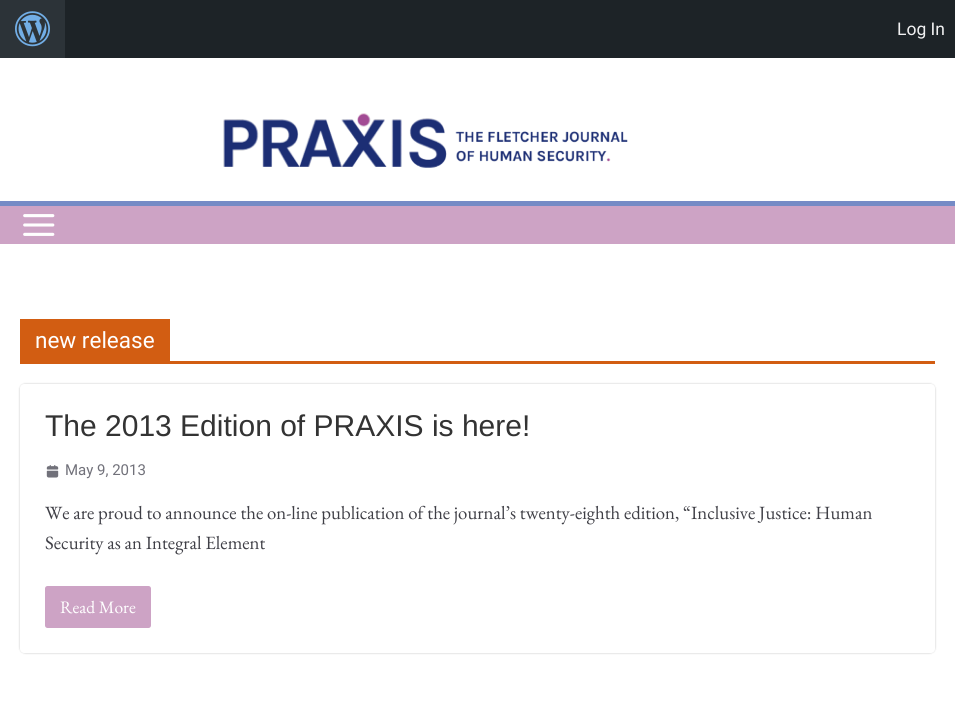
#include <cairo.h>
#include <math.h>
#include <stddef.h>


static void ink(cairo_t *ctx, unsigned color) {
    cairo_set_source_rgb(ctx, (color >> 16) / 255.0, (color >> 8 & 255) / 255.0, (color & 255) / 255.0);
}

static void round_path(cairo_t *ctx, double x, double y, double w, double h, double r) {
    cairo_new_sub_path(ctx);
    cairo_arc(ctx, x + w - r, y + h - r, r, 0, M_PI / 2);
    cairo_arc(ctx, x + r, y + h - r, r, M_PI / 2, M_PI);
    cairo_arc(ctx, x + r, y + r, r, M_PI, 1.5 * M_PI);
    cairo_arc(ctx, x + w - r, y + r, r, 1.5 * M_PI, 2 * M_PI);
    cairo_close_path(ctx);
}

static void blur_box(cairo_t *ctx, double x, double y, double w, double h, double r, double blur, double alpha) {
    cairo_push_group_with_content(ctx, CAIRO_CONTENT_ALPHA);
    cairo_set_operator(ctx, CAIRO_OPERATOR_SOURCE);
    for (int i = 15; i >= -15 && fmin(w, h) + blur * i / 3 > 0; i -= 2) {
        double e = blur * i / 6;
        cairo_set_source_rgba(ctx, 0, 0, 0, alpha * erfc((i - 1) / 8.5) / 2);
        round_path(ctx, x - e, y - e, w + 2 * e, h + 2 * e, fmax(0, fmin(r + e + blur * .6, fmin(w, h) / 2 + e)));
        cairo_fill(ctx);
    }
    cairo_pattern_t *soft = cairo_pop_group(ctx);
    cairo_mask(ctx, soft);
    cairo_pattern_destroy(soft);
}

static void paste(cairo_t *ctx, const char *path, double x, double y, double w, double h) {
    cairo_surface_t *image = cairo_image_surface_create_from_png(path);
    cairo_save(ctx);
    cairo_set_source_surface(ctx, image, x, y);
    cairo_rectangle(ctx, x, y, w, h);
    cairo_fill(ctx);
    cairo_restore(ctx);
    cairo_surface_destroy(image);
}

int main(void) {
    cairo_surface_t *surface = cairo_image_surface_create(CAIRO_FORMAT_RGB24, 955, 718);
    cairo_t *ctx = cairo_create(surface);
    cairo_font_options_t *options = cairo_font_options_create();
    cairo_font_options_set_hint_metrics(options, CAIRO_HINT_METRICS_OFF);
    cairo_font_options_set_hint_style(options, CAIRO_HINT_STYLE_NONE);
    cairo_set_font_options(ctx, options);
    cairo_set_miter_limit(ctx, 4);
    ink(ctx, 0xFFFFFF);
    cairo_paint(ctx);
    ink(ctx, 0x1D2327);
    cairo_rectangle(ctx, 65, 0, 890, 58);
    cairo_fill(ctx);
    ink(ctx, 0x2C3338);
    cairo_rectangle(ctx, 0, 0, 65, 58);
    cairo_fill(ctx);
    paste(ctx, "media/1.png", 15, 11, 35, 36);
    cairo_select_font_face(ctx, "Roboto", CAIRO_FONT_SLANT_NORMAL, CAIRO_FONT_WEIGHT_NORMAL);
    cairo_set_font_size(ctx, 17.5);
    ink(ctx, 0xF0F0F1);
    cairo_move_to(ctx, 897, 35);
    cairo_show_text(ctx, "Log In");
    paste(ctx, "media/2.png", 223, 113, 405, 55);
    ink(ctx, 0xCDA3C5);
    cairo_rectangle(ctx, 0, 206, 955, 38);
    cairo_fill(ctx);
    ink(ctx, 0x758BC6);
    cairo_rectangle(ctx, 0, 201, 955, 5);
    cairo_fill(ctx);
    paste(ctx, "media/3.png", 23, 214, 32, 22);
    ink(ctx, 0xD25D12);
    cairo_rectangle(ctx, 20, 361, 915, 3);
    cairo_fill(ctx);
    cairo_rectangle(ctx, 20, 319, 150, 42);
    cairo_fill(ctx);
    cairo_set_font_size(ctx, 22.5);
    ink(ctx, 0xFFFFFF);
    cairo_move_to(ctx, 35, 348);
    cairo_show_text(ctx, "new release");
    cairo_save(ctx);
    cairo_set_fill_rule(ctx, CAIRO_FILL_RULE_EVEN_ODD);
    cairo_new_path(ctx);
    cairo_move_to(ctx, 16, 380);
    cairo_line_to(ctx, 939, 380);
    cairo_line_to(ctx, 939, 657);
    cairo_line_to(ctx, 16, 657);
    cairo_close_path(ctx);
    cairo_move_to(ctx, 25, 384);
    cairo_line_to(ctx, 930, 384);
    cairo_curve_to(ctx, 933, 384, 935, 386, 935, 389);
    cairo_line_to(ctx, 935, 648);
    cairo_curve_to(ctx, 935, 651, 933, 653, 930, 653);
    cairo_line_to(ctx, 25, 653);
    cairo_curve_to(ctx, 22, 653, 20, 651, 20, 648);
    cairo_line_to(ctx, 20, 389);
    cairo_curve_to(ctx, 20, 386, 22, 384, 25, 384);
    cairo_close_path(ctx);
    cairo_clip(ctx);
    ink(ctx, 0x000000);
    blur_box(ctx, 20, 384, 915, 269, 5, 1, 0.24);
    cairo_restore(ctx);
    cairo_select_font_face(ctx, "Liberation Sans", CAIRO_FONT_SLANT_NORMAL, CAIRO_FONT_WEIGHT_NORMAL);
    cairo_set_font_size(ctx, 30);
    ink(ctx, 0x333333);
    cairo_move_to(ctx, 45, 436);
    cairo_show_text(ctx, "The 2013 Edition of PRAXIS is here!");
    paste(ctx, "media/4.png", 46, 465, 13, 13);
    cairo_select_font_face(ctx, "Roboto", CAIRO_FONT_SLANT_NORMAL, CAIRO_FONT_WEIGHT_NORMAL);
    cairo_set_font_size(ctx, 15);
    ink(ctx, 0x71717A);
    cairo_move_to(ctx, 65, 475);
    cairo_show_text(ctx, "May 9, 2013");
    cairo_select_font_face(ctx, "EB Garamond", CAIRO_FONT_SLANT_NORMAL, CAIRO_FONT_WEIGHT_NORMAL);
    cairo_set_font_size(ctx, 18.75);
    ink(ctx, 0x3F3F46);
    cairo_move_to(ctx, 45, 519);
    cairo_show_text(ctx, "We are proud to announce the on-line publication of the journal’s twenty-eighth edition, “Inclusive Justice: Human");
    cairo_move_to(ctx, 45, 549);
    cairo_show_text(ctx, "Security as an Integral Element");
    ink(ctx, 0xCDA3C5);
    round_path(ctx, 45, 586, 106, 42, 2.5);
    cairo_fill(ctx);
    cairo_set_font_size(ctx, 17.5);
    ink(ctx, 0xFFFFFF);
    cairo_move_to(ctx, 60, 613);
    cairo_show_text(ctx, "Read More");
    cairo_surface_write_to_png(surface, "image.png");
    cairo_font_options_destroy(options);
    cairo_destroy(ctx);
    cairo_surface_destroy(surface);
    return 0;
}
